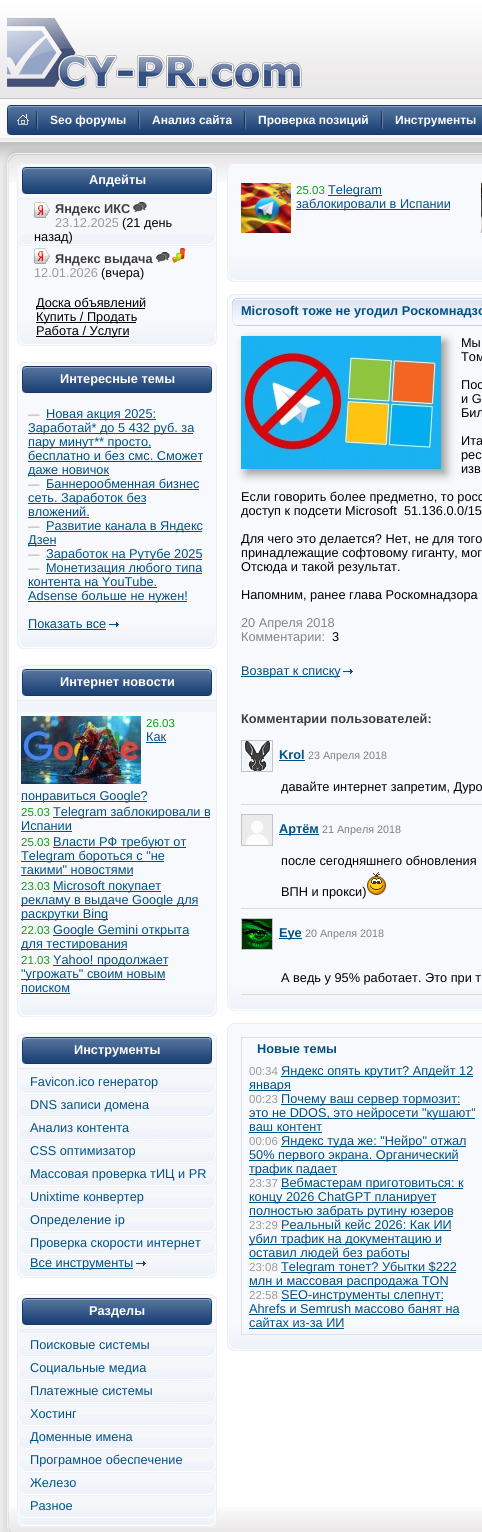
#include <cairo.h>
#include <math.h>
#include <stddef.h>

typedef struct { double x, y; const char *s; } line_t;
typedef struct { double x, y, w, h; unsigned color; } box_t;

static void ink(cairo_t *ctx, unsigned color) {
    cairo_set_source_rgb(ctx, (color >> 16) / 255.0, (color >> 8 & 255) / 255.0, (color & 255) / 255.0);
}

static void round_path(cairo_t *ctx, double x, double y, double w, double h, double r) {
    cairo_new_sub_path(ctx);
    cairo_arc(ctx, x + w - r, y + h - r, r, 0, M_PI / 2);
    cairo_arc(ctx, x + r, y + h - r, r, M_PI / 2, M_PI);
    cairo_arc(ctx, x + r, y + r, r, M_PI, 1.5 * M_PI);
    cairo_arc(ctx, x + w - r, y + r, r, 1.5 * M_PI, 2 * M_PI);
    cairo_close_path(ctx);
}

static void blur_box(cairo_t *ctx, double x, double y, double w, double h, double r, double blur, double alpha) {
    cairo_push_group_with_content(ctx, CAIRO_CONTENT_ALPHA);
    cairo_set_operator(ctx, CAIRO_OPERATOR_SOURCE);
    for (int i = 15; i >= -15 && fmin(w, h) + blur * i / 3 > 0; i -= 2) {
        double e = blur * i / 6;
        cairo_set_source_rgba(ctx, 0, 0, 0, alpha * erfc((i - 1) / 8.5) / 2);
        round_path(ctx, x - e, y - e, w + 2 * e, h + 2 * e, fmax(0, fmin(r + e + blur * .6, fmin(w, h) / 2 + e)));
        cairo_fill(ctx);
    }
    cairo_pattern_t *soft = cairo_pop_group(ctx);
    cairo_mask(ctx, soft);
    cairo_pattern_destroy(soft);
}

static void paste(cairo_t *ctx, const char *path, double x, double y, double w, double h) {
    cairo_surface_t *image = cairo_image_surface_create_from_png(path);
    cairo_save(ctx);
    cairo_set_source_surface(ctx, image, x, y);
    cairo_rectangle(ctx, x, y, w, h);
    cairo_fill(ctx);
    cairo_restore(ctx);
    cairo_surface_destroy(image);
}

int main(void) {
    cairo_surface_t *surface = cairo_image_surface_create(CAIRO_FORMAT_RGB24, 482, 1532);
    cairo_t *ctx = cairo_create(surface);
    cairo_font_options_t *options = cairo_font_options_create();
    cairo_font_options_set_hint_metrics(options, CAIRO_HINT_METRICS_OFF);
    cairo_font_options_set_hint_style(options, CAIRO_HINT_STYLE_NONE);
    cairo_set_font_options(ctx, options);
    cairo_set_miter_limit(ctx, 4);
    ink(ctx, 0xFFFFFF);
    cairo_paint(ctx);
    paste(ctx, "media/1.png", 0, 0, 482, 148);
    paste(ctx, "media/2.png", 7, 18, 295, 71);
    paste(ctx, "media/4.png", 12, 105, 470, 30);
    paste(ctx, "media/3.png", 17, 114, 12, 11);
    paste(ctx, "media/5.png", 7, 105, 5, 30);
    paste(ctx, "media/6.png", 36, 111, 2, 18);
    cairo_select_font_face(ctx, "Liberation Sans", CAIRO_FONT_SLANT_NORMAL, CAIRO_FONT_WEIGHT_BOLD);
    cairo_set_font_size(ctx, 12);
    ink(ctx, 0xFFFFFF);
    cairo_move_to(ctx, 50, 124);
    cairo_show_text(ctx, "Seo форумы");
    paste(ctx, "media/6.png", 138, 111, 2, 18);
    cairo_move_to(ctx, 152, 124);
    cairo_show_text(ctx, "Анализ сайта");
    paste(ctx, "media/6.png", 244, 111, 2, 18);
    cairo_move_to(ctx, 258, 124);
    cairo_show_text(ctx, "Проверка позиций");
    paste(ctx, "media/6.png", 381, 111, 2, 18);
    cairo_move_to(ctx, 395, 124);
    cairo_show_text(ctx, "Инструменты");
    paste(ctx, "media/7.png", 9, 148, 473, 35);
    paste(ctx, "media/8.png", 9, 1507, 473, 25);
    paste(ctx, "media/9.png", 0, 163, 9, 1369);
    paste(ctx, "media/10.png", 0, 148, 17, 15);
    paste(ctx, "media/11.png", 18, 163, 7, 4);
    ink(ctx, 0xF8F9FC);
    cairo_rectangle(ctx, 25, 164, 184, 3);
    cairo_fill(ctx);
    ink(ctx, 0xE9EEF8);
    cairo_rectangle(ctx, 25, 163, 184, 1);
    cairo_fill(ctx);
    paste(ctx, "media/12.png", 209, 163, 7, 4);
    ink(ctx, 0xF8F9FC);
    cairo_rectangle(ctx, 18, 167, 198, 31);
    cairo_fill(ctx);
    paste(ctx, "media/13.png", 22, 167, 190, 28);
    paste(ctx, "media/14.png", 22, 167, 4, 27);
    cairo_set_font_size(ctx, 12.75);
    ink(ctx, 0xFFFFFF);
    cairo_move_to(ctx, 89, 184);
    cairo_show_text(ctx, "Апдейты");
    paste(ctx, "media/15.png", 208, 167, 4, 27);
    ink(ctx, 0xF8F9FC);
    cairo_rectangle(ctx, 18, 246, 198, 73);
    cairo_fill(ctx);
    paste(ctx, "media/16.png", 18, 319, 198, 19);
    {
        static const box_t items[] = {
            {216, 167, 1, 171, 0xE9EEF8},
            {17, 167, 1, 171, 0xE9EEF8},
            {18, 199, 198, 1, 0xF1F4FA},
            {18, 198, 198, 1, 0xE9EEF8},
            {18, 200, 198, 34, 0xF6F7FB},
        };
        for (size_t i = 0; i < sizeof items / sizeof *items; i++) {
            ink(ctx, items[i].color);
            cairo_rectangle(ctx, items[i].x, items[i].y, items[i].w, items[i].h);
            cairo_fill(ctx);
        }
    }
    paste(ctx, "media/17.png", 18, 234, 198, 12);
    paste(ctx, "media/18.png", 34, 202, 16, 16);
    ink(ctx, 0x3D3D3D);
    cairo_move_to(ctx, 55, 213);
    cairo_show_text(ctx, "Яндекс ИКС");
    paste(ctx, "media/19.png", 133, 202, 14, 11);
    cairo_select_font_face(ctx, "Liberation Sans", CAIRO_FONT_SLANT_NORMAL, CAIRO_FONT_WEIGHT_NORMAL);
    ink(ctx, 0x9B9B9B);
    cairo_move_to(ctx, 55, 227);
    cairo_show_text(ctx, "23.12.2025");
    ink(ctx, 0x000000);
    cairo_move_to(ctx, 122, 227);
    cairo_show_text(ctx, "(21 день");
    cairo_move_to(ctx, 34, 241);
    cairo_show_text(ctx, "назад)");
    paste(ctx, "media/20.png", 34, 248, 16, 16);
    cairo_select_font_face(ctx, "Liberation Sans", CAIRO_FONT_SLANT_NORMAL, CAIRO_FONT_WEIGHT_BOLD);
    ink(ctx, 0x3D3D3D);
    cairo_move_to(ctx, 55, 263);
    cairo_show_text(ctx, "Яндекс выдача");
    paste(ctx, "media/21.png", 156, 252, 14, 11);
    paste(ctx, "media/22.png", 172, 248, 14, 15);
    cairo_select_font_face(ctx, "Liberation Sans", CAIRO_FONT_SLANT_NORMAL, CAIRO_FONT_WEIGHT_NORMAL);
    ink(ctx, 0x9B9B9B);
    cairo_move_to(ctx, 34, 277);
    cairo_show_text(ctx, "12.01.2026");
    ink(ctx, 0x000000);
    cairo_move_to(ctx, 101, 277);
    cairo_show_text(ctx, "(вчера)");
    cairo_rectangle(ctx, 36, 308, 109, 1);
    cairo_fill(ctx);
    cairo_move_to(ctx, 36, 307);
    cairo_show_text(ctx, "Доска объявлений");
    cairo_rectangle(ctx, 36, 322, 100, 1);
    cairo_fill(ctx);
    cairo_move_to(ctx, 36, 321);
    cairo_show_text(ctx, "Купить / Продать");
    cairo_rectangle(ctx, 36, 336, 93, 1);
    cairo_fill(ctx);
    cairo_move_to(ctx, 36, 335);
    cairo_show_text(ctx, "Работа / Услуги");
    paste(ctx, "media/23.png", 17, 330, 8, 16);
    paste(ctx, "media/24.png", 25, 338, 184, 8);
    paste(ctx, "media/25.png", 209, 330, 8, 16);
    paste(ctx, "media/26.png", 18, 362, 7, 4);
    ink(ctx, 0xF8F9FC);
    cairo_rectangle(ctx, 25, 363, 184, 3);
    cairo_fill(ctx);
    ink(ctx, 0xE9EEF8);
    cairo_rectangle(ctx, 25, 362, 184, 1);
    cairo_fill(ctx);
    paste(ctx, "media/27.png", 209, 362, 7, 4);
    ink(ctx, 0xF8F9FC);
    cairo_rectangle(ctx, 18, 366, 198, 256);
    cairo_fill(ctx);
    paste(ctx, "media/13.png", 22, 366, 190, 28);
    paste(ctx, "media/14.png", 22, 366, 4, 27);
    cairo_select_font_face(ctx, "Liberation Sans", CAIRO_FONT_SLANT_NORMAL, CAIRO_FONT_WEIGHT_BOLD);
    ink(ctx, 0xFFFFFF);
    cairo_move_to(ctx, 60, 383);
    cairo_show_text(ctx, "Интересные темы");
    paste(ctx, "media/15.png", 208, 366, 4, 27);
    paste(ctx, "media/16.png", 18, 622, 198, 19);
    ink(ctx, 0xE9EEF8);
    cairo_rectangle(ctx, 216, 366, 1, 275);
    cairo_fill(ctx);
    cairo_rectangle(ctx, 17, 366, 1, 275);
    cairo_fill(ctx);
    cairo_select_font_face(ctx, "Liberation Sans", CAIRO_FONT_SLANT_NORMAL, CAIRO_FONT_WEIGHT_NORMAL);
    cairo_set_font_size(ctx, 11.5);
    ink(ctx, 0x9B9B9B);
    cairo_move_to(ctx, 28, 418);
    cairo_show_text(ctx, "—");
    ink(ctx, 0x005187);
    cairo_rectangle(ctx, 46, 419, 110, 1);
    cairo_fill(ctx);
    cairo_set_font_size(ctx, 12.75);
    cairo_move_to(ctx, 46, 418);
    cairo_show_text(ctx, "Новая акция 2025:");
    cairo_rectangle(ctx, 28, 433, 165, 1);
    cairo_fill(ctx);
    cairo_move_to(ctx, 28, 432);
    cairo_show_text(ctx, "Заработай* до 5 432 руб. за");
    cairo_rectangle(ctx, 28, 447, 123, 1);
    cairo_fill(ctx);
    cairo_move_to(ctx, 28, 446);
    cairo_show_text(ctx, "пару минут** просто,");
    cairo_move_to(ctx, 28, 460);
    cairo_show_text(ctx, "бесплатно и без смс. Сможет");
    cairo_rectangle(ctx, 28, 461, 174, 1);
    cairo_fill(ctx);
    cairo_rectangle(ctx, 28, 475, 81, 1);
    cairo_fill(ctx);
    cairo_move_to(ctx, 28, 474);
    cairo_show_text(ctx, "даже новичок");
    cairo_set_font_size(ctx, 11.5);
    ink(ctx, 0x9B9B9B);
    cairo_move_to(ctx, 28, 488);
    cairo_show_text(ctx, "—");
    ink(ctx, 0x005187);
    cairo_rectangle(ctx, 46, 489, 153, 1);
    cairo_fill(ctx);
    cairo_set_font_size(ctx, 12.75);
    cairo_move_to(ctx, 46, 488);
    cairo_show_text(ctx, "Баннерообменная бизнес");
    cairo_rectangle(ctx, 28, 503, 118, 1);
    cairo_fill(ctx);
    cairo_move_to(ctx, 28, 502);
    cairo_show_text(ctx, "сеть. Заработок без");
    cairo_move_to(ctx, 28, 516);
    cairo_show_text(ctx, "вложений.");
    cairo_rectangle(ctx, 28, 517, 61, 1);
    cairo_fill(ctx);
    cairo_set_font_size(ctx, 11.5);
    ink(ctx, 0x9B9B9B);
    cairo_move_to(ctx, 28, 530);
    cairo_show_text(ctx, "—");
    ink(ctx, 0x005187);
    cairo_rectangle(ctx, 46, 531, 156, 1);
    cairo_fill(ctx);
    cairo_set_font_size(ctx, 12.75);
    cairo_move_to(ctx, 46, 530);
    cairo_show_text(ctx, "Развитие канала в Яндекс");
    cairo_rectangle(ctx, 28, 545, 28, 1);
    cairo_fill(ctx);
    cairo_move_to(ctx, 28, 544);
    cairo_show_text(ctx, "Дзен");
    cairo_set_font_size(ctx, 11.5);
    ink(ctx, 0x9B9B9B);
    cairo_move_to(ctx, 28, 558);
    cairo_show_text(ctx, "—");
    ink(ctx, 0x005187);
    cairo_rectangle(ctx, 46, 559, 156, 1);
    cairo_fill(ctx);
    cairo_set_font_size(ctx, 12.75);
    cairo_move_to(ctx, 46, 558);
    cairo_show_text(ctx, "Заработок на Рутубе 2025");
    cairo_set_font_size(ctx, 11.5);
    ink(ctx, 0x9B9B9B);
    cairo_move_to(ctx, 28, 572);
    cairo_show_text(ctx, "—");
    ink(ctx, 0x005187);
    cairo_rectangle(ctx, 46, 573, 156, 1);
    cairo_fill(ctx);
    cairo_set_font_size(ctx, 12.75);
    cairo_move_to(ctx, 46, 572);
    cairo_show_text(ctx, "Монетизация любого типа");
    cairo_move_to(ctx, 28, 586);
    cairo_show_text(ctx, "контента на YouTube.");
    cairo_rectangle(ctx, 28, 587, 129, 1);
    cairo_fill(ctx);
    cairo_rectangle(ctx, 28, 601, 159, 1);
    cairo_fill(ctx);
    cairo_move_to(ctx, 28, 600);
    cairo_show_text(ctx, "Adsense больше не нужен!");
    cairo_move_to(ctx, 28, 628);
    cairo_show_text(ctx, "Показать все");
    cairo_rectangle(ctx, 28, 629, 78, 1);
    cairo_fill(ctx);
    paste(ctx, "media/28.png", 109, 622, 10, 5);
    paste(ctx, "media/23.png", 17, 633, 8, 16);
    paste(ctx, "media/24.png", 25, 641, 184, 8);
    paste(ctx, "media/25.png", 209, 633, 8, 16);
    paste(ctx, "media/26.png", 18, 665, 7, 4);
    ink(ctx, 0xF8F9FC);
    cairo_rectangle(ctx, 25, 666, 184, 3);
    cairo_fill(ctx);
    ink(ctx, 0xE9EEF8);
    cairo_rectangle(ctx, 25, 665, 184, 1);
    cairo_fill(ctx);
    paste(ctx, "media/27.png", 209, 665, 7, 4);
    ink(ctx, 0xF8F9FC);
    cairo_rectangle(ctx, 18, 669, 198, 31);
    cairo_fill(ctx);
    paste(ctx, "media/13.png", 22, 669, 190, 28);
    paste(ctx, "media/14.png", 22, 669, 4, 27);
    cairo_select_font_face(ctx, "Liberation Sans", CAIRO_FONT_SLANT_NORMAL, CAIRO_FONT_WEIGHT_BOLD);
    ink(ctx, 0xFFFFFF);
    cairo_move_to(ctx, 60, 686);
    cairo_show_text(ctx, "Интернет новости");
    paste(ctx, "media/15.png", 208, 669, 4, 27);
    ink(ctx, 0xF8F9FC);
    cairo_rectangle(ctx, 18, 712, 198, 278);
    cairo_fill(ctx);
    paste(ctx, "media/16.png", 18, 990, 198, 19);
    {
        static const box_t items[] = {
            {216, 669, 1, 340, 0xE9EEF8},
            {17, 669, 1, 340, 0xE9EEF8},
            {18, 701, 198, 11, 0xF1F4FA},
            {18, 700, 198, 1, 0xE9EEF8},
        };
        for (size_t i = 0; i < sizeof items / sizeof *items; i++) {
            ink(ctx, items[i].color);
            cairo_rectangle(ctx, items[i].x, items[i].y, items[i].w, items[i].h);
            cairo_fill(ctx);
        }
    }
    paste(ctx, "media/29.png", 21, 716, 120, 68);
    cairo_select_font_face(ctx, "Liberation Sans", CAIRO_FONT_SLANT_NORMAL, CAIRO_FONT_WEIGHT_NORMAL);
    cairo_set_font_size(ctx, 11.5);
    ink(ctx, 0x109F14);
    cairo_move_to(ctx, 146, 727);
    cairo_show_text(ctx, "26.03");
    cairo_set_font_size(ctx, 12.75);
    ink(ctx, 0x005187);
    cairo_move_to(ctx, 146, 741);
    cairo_show_text(ctx, "Как");
    cairo_rectangle(ctx, 146, 742, 20, 1);
    cairo_fill(ctx);
    cairo_rectangle(ctx, 21, 801, 126, 1);
    cairo_fill(ctx);
    cairo_move_to(ctx, 21, 800);
    cairo_show_text(ctx, "понравиться Google?");
    cairo_set_font_size(ctx, 11.5);
    ink(ctx, 0x109F14);
    cairo_move_to(ctx, 21, 816);
    cairo_show_text(ctx, "25.03");
    ink(ctx, 0x005187);
    cairo_rectangle(ctx, 53, 817, 157, 1);
    cairo_fill(ctx);
    cairo_set_font_size(ctx, 12.75);
    cairo_move_to(ctx, 53, 816);
    cairo_show_text(ctx, "Telegram заблокировали в");
    cairo_move_to(ctx, 21, 830);
    cairo_show_text(ctx, "Испании");
    cairo_rectangle(ctx, 21, 831, 51, 1);
    cairo_fill(ctx);
    cairo_set_font_size(ctx, 11.5);
    ink(ctx, 0x109F14);
    cairo_move_to(ctx, 21, 846);
    cairo_show_text(ctx, "25.03");
    ink(ctx, 0x005187);
    cairo_rectangle(ctx, 53, 847, 133, 1);
    cairo_fill(ctx);
    cairo_set_font_size(ctx, 12.75);
    cairo_move_to(ctx, 53, 846);
    cairo_show_text(ctx, "Власти РФ требуют от");
    cairo_rectangle(ctx, 21, 861, 143, 1);
    cairo_fill(ctx);
    cairo_move_to(ctx, 21, 860);
    cairo_show_text(ctx, "Telegram бороться с \"не");
    cairo_move_to(ctx, 21, 874);
    cairo_show_text(ctx, "такими\" новостями");
    cairo_rectangle(ctx, 21, 875, 112, 1);
    cairo_fill(ctx);
    cairo_set_font_size(ctx, 11.5);
    ink(ctx, 0x109F14);
    cairo_move_to(ctx, 21, 890);
    cairo_show_text(ctx, "23.03");
    ink(ctx, 0x005187);
    cairo_rectangle(ctx, 53, 891, 108, 1);
    cairo_fill(ctx);
    cairo_set_font_size(ctx, 12.75);
    cairo_move_to(ctx, 53, 890);
    cairo_show_text(ctx, "Microsoft покупает");
    cairo_rectangle(ctx, 21, 905, 177, 1);
    cairo_fill(ctx);
    cairo_move_to(ctx, 21, 904);
    cairo_show_text(ctx, "рекламу в выдаче Google для");
    cairo_rectangle(ctx, 21, 919, 87, 1);
    cairo_fill(ctx);
    cairo_move_to(ctx, 21, 918);
    cairo_show_text(ctx, "раскрутки Bing");
    cairo_set_font_size(ctx, 11.5);
    ink(ctx, 0x109F14);
    cairo_move_to(ctx, 21, 934);
    cairo_show_text(ctx, "22.03");
    ink(ctx, 0x005187);
    cairo_rectangle(ctx, 53, 935, 136, 1);
    cairo_fill(ctx);
    cairo_set_font_size(ctx, 12.75);
    cairo_move_to(ctx, 53, 934);
    cairo_show_text(ctx, "Google Gemini открыта");
    cairo_rectangle(ctx, 21, 949, 106, 1);
    cairo_fill(ctx);
    cairo_move_to(ctx, 21, 948);
    cairo_show_text(ctx, "для тестирования");
    cairo_set_font_size(ctx, 11.5);
    ink(ctx, 0x109F14);
    cairo_move_to(ctx, 21, 964);
    cairo_show_text(ctx, "21.03");
    ink(ctx, 0x005187);
    cairo_rectangle(ctx, 53, 965, 115, 1);
    cairo_fill(ctx);
    cairo_set_font_size(ctx, 12.75);
    cairo_move_to(ctx, 53, 964);
    cairo_show_text(ctx, "Yahoo! продолжает");
    cairo_rectangle(ctx, 21, 979, 144, 1);
    cairo_fill(ctx);
    cairo_move_to(ctx, 21, 978);
    cairo_show_text(ctx, "\"угрожать\" своим новым");
    cairo_move_to(ctx, 21, 992);
    cairo_show_text(ctx, "поиском");
    cairo_rectangle(ctx, 21, 993, 49, 1);
    cairo_fill(ctx);
    paste(ctx, "media/23.png", 17, 1001, 8, 16);
    paste(ctx, "media/24.png", 25, 1009, 184, 8);
    paste(ctx, "media/25.png", 209, 1001, 8, 16);
    paste(ctx, "media/26.png", 18, 1033, 7, 4);
    ink(ctx, 0xF8F9FC);
    cairo_rectangle(ctx, 25, 1034, 184, 3);
    cairo_fill(ctx);
    ink(ctx, 0xE9EEF8);
    cairo_rectangle(ctx, 25, 1033, 184, 1);
    cairo_fill(ctx);
    paste(ctx, "media/27.png", 209, 1033, 7, 4);
    ink(ctx, 0xF8F9FC);
    cairo_rectangle(ctx, 18, 1037, 198, 31);
    cairo_fill(ctx);
    paste(ctx, "media/13.png", 22, 1037, 190, 28);
    paste(ctx, "media/14.png", 22, 1037, 4, 27);
    cairo_select_font_face(ctx, "Liberation Sans", CAIRO_FONT_SLANT_NORMAL, CAIRO_FONT_WEIGHT_BOLD);
    ink(ctx, 0xFFFFFF);
    cairo_move_to(ctx, 74, 1054);
    cairo_show_text(ctx, "Инструменты");
    paste(ctx, "media/15.png", 208, 1037, 4, 27);
    paste(ctx, "media/30.png", 19, 1256, 196, 14);
    {
        static const box_t items[] = {
            {216, 1037, 1, 214, 0xE9EEF8},
            {17, 1037, 1, 214, 0xE9EEF8},
            {18, 1069, 198, 1, 0xF1F4FA},
            {18, 1068, 198, 1, 0xE9EEF8},
            {18, 1070, 198, 174, 0xF6F7FB},
        };
        for (size_t i = 0; i < sizeof items / sizeof *items; i++) {
            ink(ctx, items[i].color);
            cairo_rectangle(ctx, items[i].x, items[i].y, items[i].w, items[i].h);
            cairo_fill(ctx);
        }
    }
    paste(ctx, "media/17.png", 18, 1083, 198, 12);
    cairo_select_font_face(ctx, "Liberation Sans", CAIRO_FONT_SLANT_NORMAL, CAIRO_FONT_WEIGHT_NORMAL);
    ink(ctx, 0x005187);
    cairo_move_to(ctx, 30, 1086);
    cairo_show_text(ctx, "Favicon.ico генератор");
    paste(ctx, "media/17.png", 18, 1106, 198, 12);
    cairo_move_to(ctx, 30, 1109);
    cairo_show_text(ctx, "DNS записи домена");
    paste(ctx, "media/17.png", 18, 1129, 198, 12);
    cairo_move_to(ctx, 30, 1132);
    cairo_show_text(ctx, "Анализ контента");
    paste(ctx, "media/17.png", 18, 1152, 198, 12);
    cairo_move_to(ctx, 30, 1155);
    cairo_show_text(ctx, "CSS оптимизатор");
    paste(ctx, "media/17.png", 18, 1175, 198, 12);
    cairo_move_to(ctx, 30, 1178);
    cairo_show_text(ctx, "Массовая проверка тИЦ и PR");
    paste(ctx, "media/17.png", 18, 1198, 198, 12);
    cairo_move_to(ctx, 30, 1201);
    cairo_show_text(ctx, "Unixtime конвертер");
    paste(ctx, "media/17.png", 18, 1221, 198, 12);
    cairo_move_to(ctx, 30, 1224);
    cairo_show_text(ctx, "Определение ip");
    paste(ctx, "media/17.png", 18, 1244, 198, 12);
    cairo_move_to(ctx, 30, 1247);
    cairo_show_text(ctx, "Проверка скорости интернет");
    cairo_rectangle(ctx, 30, 1268, 103, 1);
    cairo_fill(ctx);
    cairo_move_to(ctx, 30, 1267);
    cairo_show_text(ctx, "Все инструменты");
    paste(ctx, "media/31.png", 136, 1261, 10, 5);
    paste(ctx, "media/32.png", 17, 1251, 8, 27);
    paste(ctx, "media/24.png", 25, 1270, 184, 8);
    paste(ctx, "media/33.png", 209, 1251, 8, 27);
    paste(ctx, "media/26.png", 18, 1294, 7, 4);
    ink(ctx, 0xF8F9FC);
    cairo_rectangle(ctx, 25, 1295, 184, 3);
    cairo_fill(ctx);
    ink(ctx, 0xE9EEF8);
    cairo_rectangle(ctx, 25, 1294, 184, 1);
    cairo_fill(ctx);
    paste(ctx, "media/27.png", 209, 1294, 7, 4);
    ink(ctx, 0xF8F9FC);
    cairo_rectangle(ctx, 18, 1298, 198, 31);
    cairo_fill(ctx);
    paste(ctx, "media/13.png", 22, 1298, 190, 28);
    paste(ctx, "media/14.png", 22, 1298, 4, 27);
    cairo_select_font_face(ctx, "Liberation Sans", CAIRO_FONT_SLANT_NORMAL, CAIRO_FONT_WEIGHT_BOLD);
    ink(ctx, 0xFFFFFF);
    cairo_move_to(ctx, 89, 1315);
    cairo_show_text(ctx, "Разделы");
    paste(ctx, "media/15.png", 208, 1298, 4, 27);
    {
        static const box_t items[] = {
            {216, 1298, 1, 211, 0xE9EEF8},
            {17, 1298, 1, 211, 0xE9EEF8},
            {18, 1330, 198, 1, 0xF1F4FA},
            {18, 1329, 198, 1, 0xE9EEF8},
            {18, 1332, 198, 1, 0xF1F4FA},
            {18, 1331, 198, 1, 0xE9EEF8},
            {18, 1333, 198, 174, 0xF6F7FB},
        };
        for (size_t i = 0; i < sizeof items / sizeof *items; i++) {
            ink(ctx, items[i].color);
            cairo_rectangle(ctx, items[i].x, items[i].y, items[i].w, items[i].h);
            cairo_fill(ctx);
        }
    }
    paste(ctx, "media/17.png", 18, 1346, 198, 12);
    cairo_select_font_face(ctx, "Liberation Sans", CAIRO_FONT_SLANT_NORMAL, CAIRO_FONT_WEIGHT_NORMAL);
    ink(ctx, 0x005187);
    cairo_move_to(ctx, 30, 1349);
    cairo_show_text(ctx, "Поисковые системы");
    paste(ctx, "media/17.png", 18, 1369, 198, 12);
    cairo_move_to(ctx, 30, 1372);
    cairo_show_text(ctx, "Социальные медиа");
    paste(ctx, "media/17.png", 18, 1392, 198, 12);
    cairo_move_to(ctx, 30, 1395);
    cairo_show_text(ctx, "Платежные системы");
    paste(ctx, "media/17.png", 18, 1415, 198, 12);
    cairo_move_to(ctx, 30, 1418);
    cairo_show_text(ctx, "Хостинг");
    paste(ctx, "media/17.png", 18, 1438, 198, 12);
    cairo_move_to(ctx, 30, 1441);
    cairo_show_text(ctx, "Доменные имена");
    paste(ctx, "media/17.png", 18, 1461, 198, 12);
    cairo_move_to(ctx, 30, 1464);
    cairo_show_text(ctx, "Програмное обеспечение");
    paste(ctx, "media/17.png", 18, 1484, 198, 12);
    cairo_move_to(ctx, 30, 1487);
    cairo_show_text(ctx, "Железо");
    paste(ctx, "media/17.png", 18, 1507, 198, 12);
    cairo_move_to(ctx, 30, 1510);
    cairo_show_text(ctx, "Разное");
    paste(ctx, "media/34.png", 17, 1509, 8, 18);
    paste(ctx, "media/24.png", 25, 1519, 184, 8);
    paste(ctx, "media/35.png", 209, 1509, 8, 18);
    ink(ctx, 0xE9EEF8);
    cairo_rectangle(ctx, 227, 167, 1, 107);
    cairo_fill(ctx);
    paste(ctx, "media/36.png", 227, 163, 8, 6);
    {
        static const box_t items[] = {
            {235, 164, 247, 5, 0xF8F9FC},
            {235, 163, 247, 1, 0xE9EEF8},
            {228, 169, 254, 86, 0xF8F9FC},
        };
        for (size_t i = 0; i < sizeof items / sizeof *items; i++) {
            ink(ctx, items[i].color);
            cairo_rectangle(ctx, items[i].x, items[i].y, items[i].w, items[i].h);
            cairo_fill(ctx);
        }
    }
    paste(ctx, "media/37.png", 228, 255, 254, 19);
    paste(ctx, "media/38.png", 241, 183, 50, 50);
    cairo_set_font_size(ctx, 11.5);
    ink(ctx, 0x109F14);
    cairo_move_to(ctx, 296, 194);
    cairo_show_text(ctx, "25.03");
    ink(ctx, 0x005187);
    cairo_rectangle(ctx, 328, 195, 54, 1);
    cairo_fill(ctx);
    cairo_set_font_size(ctx, 12.75);
    cairo_move_to(ctx, 328, 194);
    cairo_show_text(ctx, "Telegram");
    cairo_rectangle(ctx, 296, 209, 154, 1);
    cairo_fill(ctx);
    cairo_move_to(ctx, 296, 208);
    cairo_show_text(ctx, "заблокировали в Испании");
    paste(ctx, "media/39.png", 481, 183, 1, 50);
    paste(ctx, "media/23.png", 227, 266, 8, 16);
    paste(ctx, "media/40.png", 235, 274, 247, 8);
    paste(ctx, "media/26.png", 228, 294, 7, 4);
    {
        static const box_t items[] = {
            {235, 295, 247, 3, 0xF8F9FC},
            {235, 294, 247, 1, 0xE9EEF8},
            {228, 326, 254, 658, 0xF8F9FC},
        };
        for (size_t i = 0; i < sizeof items / sizeof *items; i++) {
            ink(ctx, items[i].color);
            cairo_rectangle(ctx, items[i].x, items[i].y, items[i].w, items[i].h);
            cairo_fill(ctx);
        }
    }
    ink(ctx, 0x999999);
    blur_box(ctx, 246, 341, 200, 133, 0, 5, 1);
    ink(ctx, 0xF8F9FC);
    cairo_rectangle(ctx, 228, 298, 4, 28);
    cairo_fill(ctx);
    paste(ctx, "media/41.png", 236, 298, 246, 28);
    paste(ctx, "media/42.png", 232, 298, 4, 28);
    cairo_select_font_face(ctx, "Liberation Sans", CAIRO_FONT_SLANT_NORMAL, CAIRO_FONT_WEIGHT_BOLD);
    ink(ctx, 0x005187);
    cairo_move_to(ctx, 241, 315);
    cairo_show_text(ctx, "Microsoft тоже не угодил Роскомнадзо");
    paste(ctx, "media/37.png", 228, 984, 254, 19);
    ink(ctx, 0xE9EEF8);
    cairo_rectangle(ctx, 227, 298, 1, 705);
    cairo_fill(ctx);
    paste(ctx, "media/43.png", 241, 336, 200, 133);
    cairo_select_font_face(ctx, "Liberation Sans", CAIRO_FONT_SLANT_NORMAL, CAIRO_FONT_WEIGHT_NORMAL);
    ink(ctx, 0x000000);
    {
        static const line_t items[] = {
            {461, 347, "Мы"},
            {461, 361, "Том"},
            {461, 389, "Пос"},
            {461, 403, "и G"},
            {461, 417, "Бил"},
            {461, 445, "Ита"},
            {461, 459, "рес"},
            {461, 473, "изв"},
            {241, 501, "Если говорить более предметно, то росс"},
            {241, 515, "доступ к подсети Microsoft  51.136.0.0/15"},
            {241, 543, "Для чего это делается? Нет, не для того"},
            {241, 557, "принадлежащие софтовому гиганту, мог"},
            {241, 571, "Отсюда и такой результат."},
            {241, 599, "Напомним, ранее глава Роскомнадзора"},
        };
        for (size_t i = 0; i < sizeof items / sizeof *items; i++) {
            cairo_move_to(ctx, items[i].x, items[i].y);
            cairo_show_text(ctx, items[i].s);
        }
    }
    ink(ctx, 0x858585);
    cairo_move_to(ctx, 241, 627);
    cairo_show_text(ctx, "20 Апреля 2018");
    cairo_move_to(ctx, 241, 641);
    cairo_show_text(ctx, "Комментарии:");
    ink(ctx, 0x000000);
    cairo_move_to(ctx, 332, 641);
    cairo_show_text(ctx, "3");
    ink(ctx, 0x005187);
    cairo_rectangle(ctx, 241, 676, 99, 1);
    cairo_fill(ctx);
    cairo_move_to(ctx, 241, 675);
    cairo_show_text(ctx, "Возврат к списку");
    paste(ctx, "media/44.png", 343, 669, 10, 5);
    cairo_select_font_face(ctx, "Liberation Sans", CAIRO_FONT_SLANT_NORMAL, CAIRO_FONT_WEIGHT_BOLD);
    ink(ctx, 0x3D3D3D);
    cairo_move_to(ctx, 241, 723);
    cairo_show_text(ctx, "Комментарии пользователей:");
    ink(ctx, 0xDADADA);
    cairo_rectangle(ctx, 241, 804, 241, 1);
    cairo_fill(ctx);
    cairo_rectangle(ctx, 241.5, 740.5, 31, 31);
    ink(ctx, 0xC4C4C4);
    cairo_set_line_width(ctx, 1);
    cairo_stroke(ctx);
    paste(ctx, "media/45.png", 242, 741, 30, 30);
    ink(ctx, 0x005187);
    cairo_move_to(ctx, 279, 759);
    cairo_show_text(ctx, "Krol");
    cairo_rectangle(ctx, 279, 760, 26, 1);
    cairo_fill(ctx);
    cairo_select_font_face(ctx, "Liberation Sans", CAIRO_FONT_SLANT_NORMAL, CAIRO_FONT_WEIGHT_NORMAL);
    cairo_set_font_size(ctx, 10.75);
    ink(ctx, 0x7E7E7E);
    cairo_move_to(ctx, 308, 759);
    cairo_show_text(ctx, "23 Апреля 2018");
    cairo_set_font_size(ctx, 12.75);
    ink(ctx, 0x000000);
    cairo_move_to(ctx, 281, 791);
    cairo_show_text(ctx, "давайте интернет запретим, Дуро");
    ink(ctx, 0xDADADA);
    cairo_rectangle(ctx, 241, 908, 241, 1);
    cairo_fill(ctx);
    ink(ctx, 0xECEAEC);
    cairo_rectangle(ctx, 241.5, 814.5, 31, 31);
    cairo_fill_preserve(ctx);
    ink(ctx, 0xC4C4C4);
    cairo_stroke(ctx);
    paste(ctx, "media/46.png", 245, 820, 24, 25);
    ink(ctx, 0x005187);
    cairo_rectangle(ctx, 279, 834, 40, 1);
    cairo_fill(ctx);
    cairo_select_font_face(ctx, "Liberation Sans", CAIRO_FONT_SLANT_NORMAL, CAIRO_FONT_WEIGHT_BOLD);
    cairo_move_to(ctx, 279, 833);
    cairo_show_text(ctx, "Артём");
    cairo_select_font_face(ctx, "Liberation Sans", CAIRO_FONT_SLANT_NORMAL, CAIRO_FONT_WEIGHT_NORMAL);
    cairo_set_font_size(ctx, 10.75);
    ink(ctx, 0x7E7E7E);
    cairo_move_to(ctx, 322, 833);
    cairo_show_text(ctx, "21 Апреля 2018");
    cairo_set_font_size(ctx, 12.75);
    ink(ctx, 0x000000);
    cairo_move_to(ctx, 281, 865);
    cairo_show_text(ctx, "после сегодняшнего обновления");
    cairo_move_to(ctx, 281, 896);
    cairo_show_text(ctx, "ВПН и прокси)");
    paste(ctx, "media/47.png", 367, 872, 19, 23);
    ink(ctx, 0xDADADA);
    cairo_rectangle(ctx, 241, 994, 241, 1);
    cairo_fill(ctx);
    cairo_rectangle(ctx, 241.5, 918.5, 31, 31);
    ink(ctx, 0xC4C4C4);
    cairo_stroke(ctx);
    paste(ctx, "media/48.png", 242, 919, 30, 30);
    ink(ctx, 0x005187);
    cairo_rectangle(ctx, 279, 938, 23, 1);
    cairo_fill(ctx);
    cairo_select_font_face(ctx, "Liberation Sans", CAIRO_FONT_SLANT_NORMAL, CAIRO_FONT_WEIGHT_BOLD);
    cairo_move_to(ctx, 279, 937);
    cairo_show_text(ctx, "Eye");
    cairo_select_font_face(ctx, "Liberation Sans", CAIRO_FONT_SLANT_NORMAL, CAIRO_FONT_WEIGHT_NORMAL);
    cairo_set_font_size(ctx, 10.75);
    ink(ctx, 0x7E7E7E);
    cairo_move_to(ctx, 305, 937);
    cairo_show_text(ctx, "20 Апреля 2018");
    cairo_set_font_size(ctx, 12.75);
    ink(ctx, 0x000000);
    cairo_move_to(ctx, 281, 982);
    cairo_show_text(ctx, "А ведь у 95% работает. Это при т");
    paste(ctx, "media/23.png", 227, 995, 8, 16);
    paste(ctx, "media/40.png", 235, 1003, 247, 8);
    ink(ctx, 0xE9EEF8);
    cairo_rectangle(ctx, 227, 1027, 1, 316);
    cairo_fill(ctx);
    paste(ctx, "media/49.png", 227, 1023, 8, 6);
    {
        static const box_t items[] = {
            {235, 1024, 247, 5, 0xF8F9FC},
            {235, 1023, 247, 1, 0xE9EEF8},
            {228, 1029, 254, 295, 0xF8F9FC},
        };
        for (size_t i = 0; i < sizeof items / sizeof *items; i++) {
            ink(ctx, items[i].color);
            cairo_rectangle(ctx, items[i].x, items[i].y, items[i].w, items[i].h);
            cairo_fill(ctx);
        }
    }
    paste(ctx, "media/37.png", 228, 1324, 254, 19);
    {
        static const box_t items[] = {
            {241, 1037, 241, 1, 0xDAE0E7},
            {241, 1334, 241, 1, 0xDAE0E7},
            {241, 1037, 1, 298, 0xDAE0E7},
        };
        for (size_t i = 0; i < sizeof items / sizeof *items; i++) {
            ink(ctx, items[i].color);
            cairo_rectangle(ctx, items[i].x, items[i].y, items[i].w, items[i].h);
            cairo_fill(ctx);
        }
    }
    cairo_select_font_face(ctx, "Liberation Sans", CAIRO_FONT_SLANT_NORMAL, CAIRO_FONT_WEIGHT_BOLD);
    ink(ctx, 0x005187);
    cairo_move_to(ctx, 257, 1053);
    cairo_show_text(ctx, "Новые темы");
    cairo_select_font_face(ctx, "Liberation Sans", CAIRO_FONT_SLANT_NORMAL, CAIRO_FONT_WEIGHT_NORMAL);
    cairo_set_font_size(ctx, 11.5);
    ink(ctx, 0x9B9B9B);
    cairo_move_to(ctx, 249, 1075);
    cairo_show_text(ctx, "00:34");
    ink(ctx, 0x005187);
    cairo_rectangle(ctx, 281, 1076, 192, 1);
    cairo_fill(ctx);
    cairo_set_font_size(ctx, 12.75);
    cairo_move_to(ctx, 281, 1075);
    cairo_show_text(ctx, "Яндекс опять крутит? Апдейт 12");
    cairo_rectangle(ctx, 249, 1090, 42, 1);
    cairo_fill(ctx);
    cairo_move_to(ctx, 249, 1089);
    cairo_show_text(ctx, "января");
    cairo_set_font_size(ctx, 11.5);
    ink(ctx, 0x9B9B9B);
    cairo_move_to(ctx, 249, 1103);
    cairo_show_text(ctx, "00:23");
    ink(ctx, 0x005187);
    cairo_rectangle(ctx, 281, 1104, 179, 1);
    cairo_fill(ctx);
    cairo_set_font_size(ctx, 12.75);
    cairo_move_to(ctx, 281, 1103);
    cairo_show_text(ctx, "Почему ваш сервер тормозит:");
    cairo_rectangle(ctx, 249, 1118, 226, 1);
    cairo_fill(ctx);
    cairo_move_to(ctx, 249, 1117);
    cairo_show_text(ctx, "это не DDOS, это нейросети \"кушают\"");
    cairo_move_to(ctx, 249, 1131);
    cairo_show_text(ctx, "ваш контент");
    cairo_rectangle(ctx, 249, 1132, 73, 1);
    cairo_fill(ctx);
    cairo_set_font_size(ctx, 11.5);
    ink(ctx, 0x9B9B9B);
    cairo_move_to(ctx, 249, 1145);
    cairo_show_text(ctx, "00:06");
    ink(ctx, 0x005187);
    cairo_rectangle(ctx, 281, 1146, 185, 1);
    cairo_fill(ctx);
    cairo_set_font_size(ctx, 12.75);
    cairo_move_to(ctx, 281, 1145);
    cairo_show_text(ctx, "Яндекс туда же: \"Нейро\" отжал");
    cairo_rectangle(ctx, 249, 1160, 209, 1);
    cairo_fill(ctx);
    cairo_move_to(ctx, 249, 1159);
    cairo_show_text(ctx, "50% первого экрана. Органический");
    cairo_rectangle(ctx, 249, 1174, 88, 1);
    cairo_fill(ctx);
    cairo_move_to(ctx, 249, 1173);
    cairo_show_text(ctx, "трафик падает");
    cairo_set_font_size(ctx, 11.5);
    ink(ctx, 0x9B9B9B);
    cairo_move_to(ctx, 249, 1187);
    cairo_show_text(ctx, "23:37");
    ink(ctx, 0x005187);
    cairo_rectangle(ctx, 281, 1188, 182, 1);
    cairo_fill(ctx);
    cairo_set_font_size(ctx, 12.75);
    cairo_move_to(ctx, 281, 1187);
    cairo_show_text(ctx, "Вебмастерам приготовиться: к");
    cairo_rectangle(ctx, 249, 1202, 187, 1);
    cairo_fill(ctx);
    cairo_move_to(ctx, 249, 1201);
    cairo_show_text(ctx, "концу 2026 ChatGPT планирует");
    cairo_rectangle(ctx, 249, 1216, 204, 1);
    cairo_fill(ctx);
    cairo_move_to(ctx, 249, 1215);
    cairo_show_text(ctx, "полностью забрать рутину юзеров");
    cairo_set_font_size(ctx, 11.5);
    ink(ctx, 0x9B9B9B);
    cairo_move_to(ctx, 249, 1229);
    cairo_show_text(ctx, "23:29");
    cairo_set_font_size(ctx, 12.75);
    ink(ctx, 0x005187);
    cairo_move_to(ctx, 281, 1229);
    cairo_show_text(ctx, "Реальный кейс 2026: Как ИИ");
    cairo_rectangle(ctx, 281, 1230, 170, 1);
    cairo_fill(ctx);
    cairo_rectangle(ctx, 249, 1244, 192, 1);
    cairo_fill(ctx);
    cairo_move_to(ctx, 249, 1243);
    cairo_show_text(ctx, "убил трафик на документацию и");
    cairo_rectangle(ctx, 249, 1258, 160, 1);
    cairo_fill(ctx);
    cairo_move_to(ctx, 249, 1257);
    cairo_show_text(ctx, "оставил людей без работы");
    cairo_set_font_size(ctx, 11.5);
    ink(ctx, 0x9B9B9B);
    cairo_move_to(ctx, 249, 1271);
    cairo_show_text(ctx, "23:08");
    ink(ctx, 0x005187);
    cairo_rectangle(ctx, 281, 1272, 175, 1);
    cairo_fill(ctx);
    cairo_set_font_size(ctx, 12.75);
    cairo_move_to(ctx, 281, 1271);
    cairo_show_text(ctx, "Telegram тонет? Убытки $222");
    cairo_rectangle(ctx, 249, 1286, 199, 1);
    cairo_fill(ctx);
    cairo_move_to(ctx, 249, 1285);
    cairo_show_text(ctx, "млн и массовая распродажа TON");
    cairo_set_font_size(ctx, 11.5);
    ink(ctx, 0x9B9B9B);
    cairo_move_to(ctx, 249, 1299);
    cairo_show_text(ctx, "22:58");
    ink(ctx, 0x005187);
    cairo_rectangle(ctx, 281, 1300, 162, 1);
    cairo_fill(ctx);
    cairo_set_font_size(ctx, 12.75);
    cairo_move_to(ctx, 281, 1299);
    cairo_show_text(ctx, "SEO-инструменты слепнут:");
    cairo_move_to(ctx, 249, 1313);
    cairo_show_text(ctx, "Ahrefs и Semrush массово банят на");
    cairo_rectangle(ctx, 249, 1314, 210, 1);
    cairo_fill(ctx);
    cairo_move_to(ctx, 249, 1327);
    cairo_show_text(ctx, "сайтах из-за ИИ");
    cairo_rectangle(ctx, 249, 1328, 95, 1);
    cairo_fill(ctx);
    paste(ctx, "media/23.png", 227, 1335, 8, 16);
    paste(ctx, "media/40.png", 235, 1343, 247, 8);
    paste(ctx, "media/50.png", 5, 1512, 6, 20);
    cairo_surface_write_to_png(surface, "image.png");
    cairo_font_options_destroy(options);
    cairo_destroy(ctx);
    cairo_surface_destroy(surface);
    return 0;
}
